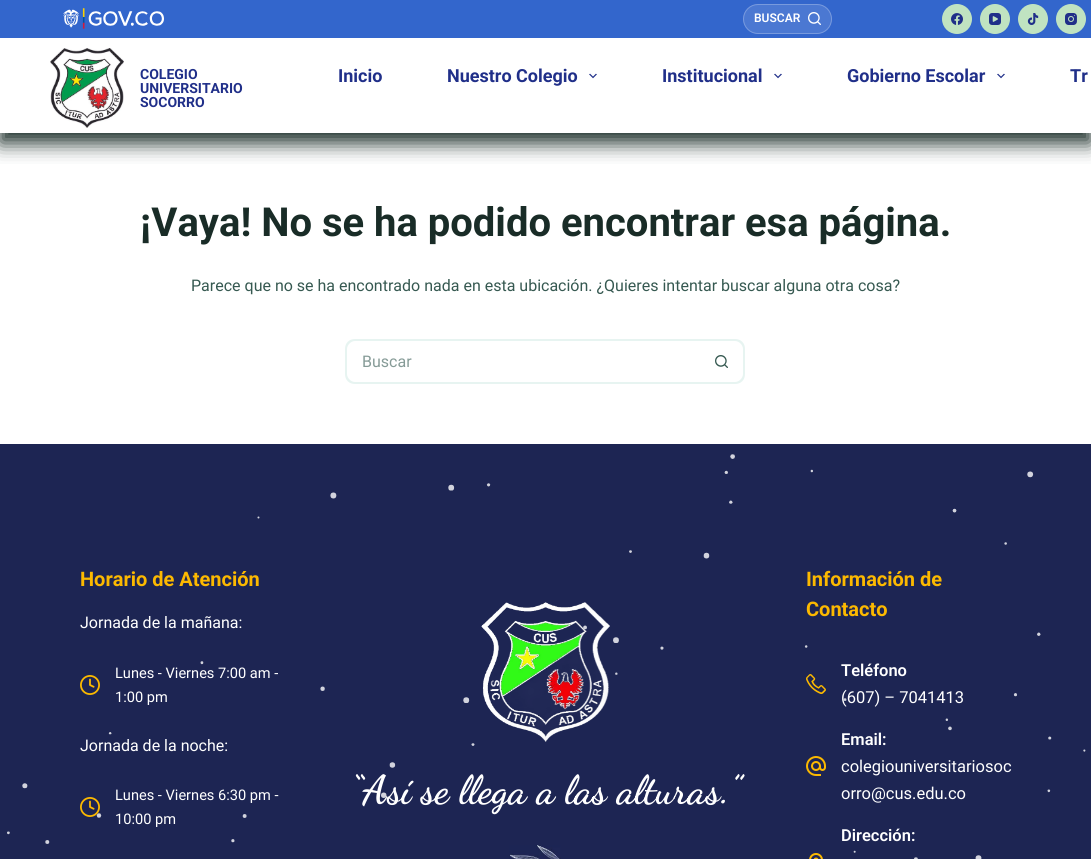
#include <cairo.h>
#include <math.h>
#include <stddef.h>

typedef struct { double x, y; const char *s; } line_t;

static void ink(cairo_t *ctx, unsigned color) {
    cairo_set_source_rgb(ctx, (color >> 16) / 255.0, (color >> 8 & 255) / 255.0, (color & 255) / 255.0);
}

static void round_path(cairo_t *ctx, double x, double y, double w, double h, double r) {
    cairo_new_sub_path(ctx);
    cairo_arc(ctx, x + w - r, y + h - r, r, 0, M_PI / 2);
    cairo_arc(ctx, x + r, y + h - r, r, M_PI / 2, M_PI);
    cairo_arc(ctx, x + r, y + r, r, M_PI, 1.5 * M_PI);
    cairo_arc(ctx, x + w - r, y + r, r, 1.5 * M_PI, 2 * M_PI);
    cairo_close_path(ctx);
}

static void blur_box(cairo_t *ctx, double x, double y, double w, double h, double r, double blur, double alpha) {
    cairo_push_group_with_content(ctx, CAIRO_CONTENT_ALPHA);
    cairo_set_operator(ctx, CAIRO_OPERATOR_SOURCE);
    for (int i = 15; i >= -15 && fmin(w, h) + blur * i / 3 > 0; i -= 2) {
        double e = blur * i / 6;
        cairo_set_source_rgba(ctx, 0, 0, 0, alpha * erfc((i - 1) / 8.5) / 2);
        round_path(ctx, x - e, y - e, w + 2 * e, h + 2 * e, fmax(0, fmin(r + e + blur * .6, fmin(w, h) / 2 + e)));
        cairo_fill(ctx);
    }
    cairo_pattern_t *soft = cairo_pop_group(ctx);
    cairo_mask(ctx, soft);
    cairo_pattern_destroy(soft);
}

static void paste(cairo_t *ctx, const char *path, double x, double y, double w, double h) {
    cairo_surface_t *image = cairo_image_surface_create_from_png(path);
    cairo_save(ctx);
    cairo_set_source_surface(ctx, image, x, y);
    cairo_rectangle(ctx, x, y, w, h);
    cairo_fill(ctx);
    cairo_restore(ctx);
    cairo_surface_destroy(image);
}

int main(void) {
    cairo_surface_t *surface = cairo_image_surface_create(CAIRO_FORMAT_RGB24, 1091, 859);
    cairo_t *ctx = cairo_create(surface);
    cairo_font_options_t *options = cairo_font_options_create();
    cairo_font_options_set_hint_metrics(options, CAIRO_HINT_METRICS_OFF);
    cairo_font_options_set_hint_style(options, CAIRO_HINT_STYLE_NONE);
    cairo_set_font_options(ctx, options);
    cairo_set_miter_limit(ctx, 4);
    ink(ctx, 0xFFFFFF);
    cairo_paint(ctx);
    cairo_save(ctx);
    cairo_rectangle(ctx, 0, 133, 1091, 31);
    cairo_clip(ctx);
    ink(ctx, 0x192C27);
    blur_box(ctx, 0, 48, 1091, 95, 0, 10, 1);
    cairo_restore(ctx);
    ink(ctx, 0x3366CC);
    cairo_rectangle(ctx, 0, 0, 1091, 38);
    cairo_fill(ctx);
    paste(ctx, "media/1.png", 63, 8, 101, 21);
    ink(ctx, 0x4B78D2);
    round_path(ctx, 743, 4, 89, 30, 15);
    cairo_fill(ctx);
    round_path(ctx, 743.5, 4.5, 88, 29, 14.5);
    cairo_set_source_rgba(ctx, 1, 1, 1, 0.25);
    cairo_set_line_width(ctx, 1);
    cairo_stroke(ctx);
    cairo_select_font_face(ctx, "Roboto SemiBold", CAIRO_FONT_SLANT_NORMAL, CAIRO_FONT_WEIGHT_NORMAL);
    cairo_set_font_size(ctx, 12);
    ink(ctx, 0xFFFFFF);
    cairo_move_to(ctx, 754, 22);
    cairo_show_text(ctx, "BUSCAR");
    paste(ctx, "media/2.png", 808, 12, 13, 13);
    ink(ctx, 0xC0E3C1);
    cairo_arc(ctx, 957, 19, 15, 0, 2 * M_PI);
    cairo_fill(ctx);
    paste(ctx, "media/3.png", 951, 13, 12, 12);
    cairo_arc(ctx, 995, 19, 15, 0, 2 * M_PI);
    cairo_fill(ctx);
    paste(ctx, "media/4.png", 989, 13, 12, 12);
    cairo_arc(ctx, 1033, 19, 15, 0, 2 * M_PI);
    cairo_fill(ctx);
    paste(ctx, "media/5.png", 1027, 13, 12, 12);
    cairo_arc(ctx, 1071, 19, 15, 0, 2 * M_PI);
    cairo_fill(ctx);
    paste(ctx, "media/6.png", 1065, 13, 12, 12);
    paste(ctx, "media/7.png", 50, 48, 74, 80);
    cairo_select_font_face(ctx, "Roboto", CAIRO_FONT_SLANT_NORMAL, CAIRO_FONT_WEIGHT_BOLD);
    cairo_set_font_size(ctx, 14);
    ink(ctx, 0x202F89);
    {
        static const line_t items[] = {
            {140, 79, "COLEGIO"},
            {140, 93, "UNIVERSITARIO"},
            {140, 107, "SOCORRO"},
        };
        for (size_t i = 0; i < sizeof items / sizeof *items; i++) {
            cairo_move_to(ctx, items[i].x, items[i].y);
            cairo_show_text(ctx, items[i].s);
        }
    }
    cairo_set_font_size(ctx, 18);
    cairo_move_to(ctx, 338, 82);
    cairo_show_text(ctx, "Inicio");
    cairo_move_to(ctx, 447, 82);
    cairo_show_text(ctx, "Nuestro Colegio");
    paste(ctx, "media/8.png", 589, 73, 8, 6);
    cairo_move_to(ctx, 662, 82);
    cairo_show_text(ctx, "Institucional");
    paste(ctx, "media/8.png", 774, 73, 8, 6);
    cairo_move_to(ctx, 847, 82);
    cairo_show_text(ctx, "Gobierno Escolar");
    paste(ctx, "media/8.png", 997, 73, 8, 6);
    cairo_move_to(ctx, 1070, 82);
    cairo_show_text(ctx, "Tr");
    cairo_set_font_size(ctx, 40);
    ink(ctx, 0x192C27);
    cairo_move_to(ctx, 140, 236);
    cairo_show_text(ctx, "¡Vaya! No se ha podido encontrar esa página.");
    cairo_select_font_face(ctx, "Roboto", CAIRO_FONT_SLANT_NORMAL, CAIRO_FONT_WEIGHT_NORMAL);
    cairo_set_font_size(ctx, 16);
    ink(ctx, 0x365951);
    cairo_move_to(ctx, 191, 291);
    cairo_show_text(ctx, "Parece que no se ha encontrado nada en esta ubicación. ¿Quieres intentar buscar alguna otra cosa?");
    ink(ctx, 0xE7F4F1);
    cairo_set_fill_rule(ctx, CAIRO_FILL_RULE_EVEN_ODD);
    cairo_new_path(ctx);
    cairo_move_to(ctx, 355, 339);
    cairo_line_to(ctx, 700, 339);
    cairo_line_to(ctx, 700, 384);
    cairo_line_to(ctx, 355, 384);
    cairo_curve_to(ctx, 349, 384, 345, 380, 345, 374);
    cairo_line_to(ctx, 345, 349);
    cairo_curve_to(ctx, 345, 343, 349, 339, 355, 339);
    cairo_close_path(ctx);
    cairo_move_to(ctx, 355, 341);
    cairo_line_to(ctx, 700, 341);
    cairo_line_to(ctx, 700, 382);
    cairo_line_to(ctx, 355, 382);
    cairo_curve_to(ctx, 351, 382, 347, 378, 347, 374);
    cairo_line_to(ctx, 347, 349);
    cairo_curve_to(ctx, 347, 345, 351, 341, 355, 341);
    cairo_close_path(ctx);
    cairo_fill(ctx);
    ink(ctx, 0x869B97);
    cairo_move_to(ctx, 362, 367);
    cairo_show_text(ctx, "Buscar");
    ink(ctx, 0xE7F4F1);
    cairo_new_path(ctx);
    cairo_move_to(ctx, 700, 339);
    cairo_line_to(ctx, 735, 339);
    cairo_curve_to(ctx, 741, 339, 745, 343, 745, 349);
    cairo_line_to(ctx, 745, 374);
    cairo_curve_to(ctx, 745, 380, 741, 384, 735, 384);
    cairo_line_to(ctx, 700, 384);
    cairo_close_path(ctx);
    cairo_move_to(ctx, 700, 341);
    cairo_line_to(ctx, 735, 341);
    cairo_curve_to(ctx, 739, 341, 743, 345, 743, 349);
    cairo_line_to(ctx, 743, 374);
    cairo_curve_to(ctx, 743, 378, 739, 382, 735, 382);
    cairo_line_to(ctx, 700, 382);
    cairo_close_path(ctx);
    cairo_fill(ctx);
    paste(ctx, "media/9.png", 715, 355, 13, 13);
    ink(ctx, 0x1D2553);
    cairo_rectangle(ctx, 0, 444, 1091, 415);
    cairo_fill(ctx);
    paste(ctx, "media/10.png", 7, 454, 1079, 405);
    cairo_select_font_face(ctx, "Roboto", CAIRO_FONT_SLANT_NORMAL, CAIRO_FONT_WEIGHT_BOLD);
    cairo_set_font_size(ctx, 20);
    ink(ctx, 0xFCB900);
    cairo_move_to(ctx, 80, 586);
    cairo_show_text(ctx, "Horario de Atención");
    cairo_select_font_face(ctx, "Roboto", CAIRO_FONT_SLANT_NORMAL, CAIRO_FONT_WEIGHT_NORMAL);
    cairo_set_font_size(ctx, 16);
    ink(ctx, 0xFFFFFF);
    cairo_move_to(ctx, 80, 628);
    cairo_show_text(ctx, "Jornada de la mañana:");
    paste(ctx, "media/11.png", 80, 675, 20, 20);
    cairo_set_font_size(ctx, 14.6);
    cairo_move_to(ctx, 115, 678);
    cairo_show_text(ctx, "Lunes - Viernes 7:00 am -");
    cairo_move_to(ctx, 115, 702);
    cairo_show_text(ctx, "1:00 pm");
    cairo_set_font_size(ctx, 16);
    cairo_move_to(ctx, 80, 751);
    cairo_show_text(ctx, "Jornada de la noche:");
    paste(ctx, "media/12.png", 80, 797, 20, 20);
    cairo_set_font_size(ctx, 14.6);
    cairo_move_to(ctx, 115, 800);
    cairo_show_text(ctx, "Lunes - Viernes 6:30 pm -");
    cairo_move_to(ctx, 115, 824);
    cairo_show_text(ctx, "10:00 pm");
    paste(ctx, "media/13.png", 481, 602, 129, 140);
    cairo_select_font_face(ctx, "Dancing Script", CAIRO_FONT_SLANT_NORMAL, CAIRO_FONT_WEIGHT_BOLD);
    cairo_set_font_size(ctx, 40);
    cairo_move_to(ctx, 350, 803);
    cairo_show_text(ctx, "“Así se llega a las alturas.”");
    paste(ctx, "media/14.png", 509, 845, 52, 14);
    cairo_select_font_face(ctx, "Roboto", CAIRO_FONT_SLANT_NORMAL, CAIRO_FONT_WEIGHT_BOLD);
    cairo_set_font_size(ctx, 20);
    ink(ctx, 0xFCB900);
    cairo_move_to(ctx, 806, 586);
    cairo_show_text(ctx, "Información de");
    cairo_move_to(ctx, 806, 616);
    cairo_show_text(ctx, "Contacto");
    paste(ctx, "media/15.png", 806, 674, 20, 20);
    cairo_select_font_face(ctx, "Roboto SemiBold", CAIRO_FONT_SLANT_NORMAL, CAIRO_FONT_WEIGHT_NORMAL);
    cairo_set_font_size(ctx, 16.5);
    ink(ctx, 0xFFFFFF);
    cairo_move_to(ctx, 841, 676);
    cairo_show_text(ctx, "Teléfono");
    cairo_select_font_face(ctx, "Roboto", CAIRO_FONT_SLANT_NORMAL, CAIRO_FONT_WEIGHT_NORMAL);
    cairo_move_to(ctx, 841, 703);
    cairo_show_text(ctx, "(607) – 7041413");
    paste(ctx, "media/16.png", 806, 756, 20, 20);
    cairo_select_font_face(ctx, "Roboto SemiBold", CAIRO_FONT_SLANT_NORMAL, CAIRO_FONT_WEIGHT_NORMAL);
    cairo_move_to(ctx, 841, 745);
    cairo_show_text(ctx, "Email:");
    cairo_select_font_face(ctx, "Roboto", CAIRO_FONT_SLANT_NORMAL, CAIRO_FONT_WEIGHT_NORMAL);
    cairo_move_to(ctx, 841, 772);
    cairo_show_text(ctx, "colegiouniversitariosoc");
    cairo_move_to(ctx, 841, 799);
    cairo_show_text(ctx, "orro@cus.edu.co");
    cairo_select_font_face(ctx, "Roboto SemiBold", CAIRO_FONT_SLANT_NORMAL, CAIRO_FONT_WEIGHT_NORMAL);
    cairo_move_to(ctx, 841, 841);
    cairo_show_text(ctx, "Dirección:");
    paste(ctx, "media/17.png", 809, 853, 14, 6);
    cairo_surface_write_to_png(surface, "image.png");
    cairo_font_options_destroy(options);
    cairo_destroy(ctx);
    cairo_surface_destroy(surface);
    return 0;
}
